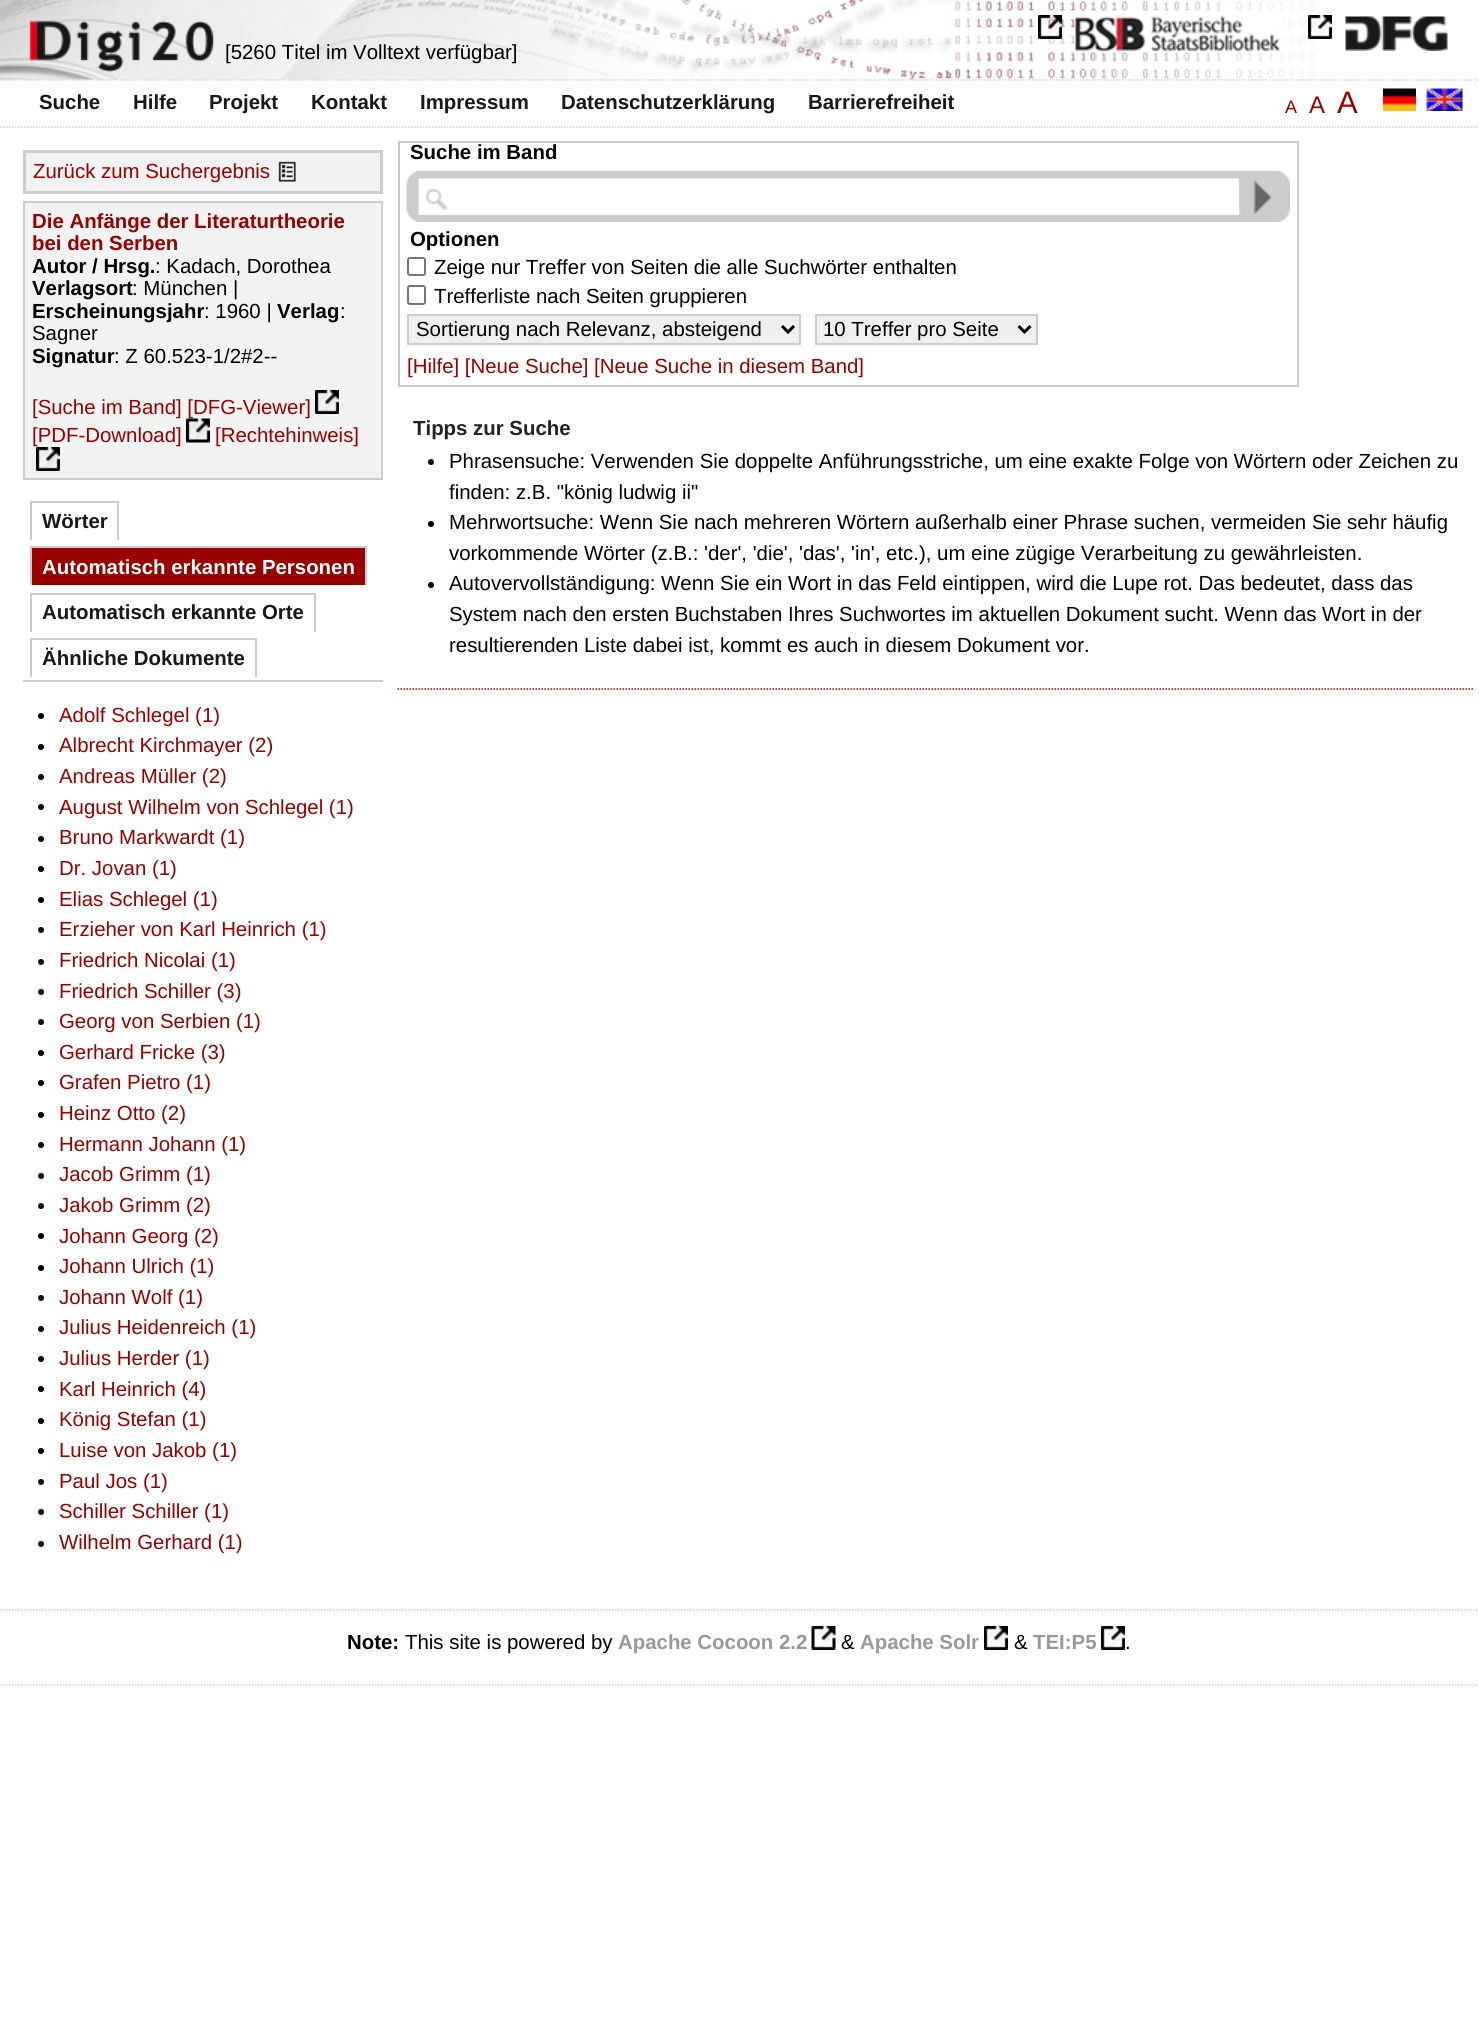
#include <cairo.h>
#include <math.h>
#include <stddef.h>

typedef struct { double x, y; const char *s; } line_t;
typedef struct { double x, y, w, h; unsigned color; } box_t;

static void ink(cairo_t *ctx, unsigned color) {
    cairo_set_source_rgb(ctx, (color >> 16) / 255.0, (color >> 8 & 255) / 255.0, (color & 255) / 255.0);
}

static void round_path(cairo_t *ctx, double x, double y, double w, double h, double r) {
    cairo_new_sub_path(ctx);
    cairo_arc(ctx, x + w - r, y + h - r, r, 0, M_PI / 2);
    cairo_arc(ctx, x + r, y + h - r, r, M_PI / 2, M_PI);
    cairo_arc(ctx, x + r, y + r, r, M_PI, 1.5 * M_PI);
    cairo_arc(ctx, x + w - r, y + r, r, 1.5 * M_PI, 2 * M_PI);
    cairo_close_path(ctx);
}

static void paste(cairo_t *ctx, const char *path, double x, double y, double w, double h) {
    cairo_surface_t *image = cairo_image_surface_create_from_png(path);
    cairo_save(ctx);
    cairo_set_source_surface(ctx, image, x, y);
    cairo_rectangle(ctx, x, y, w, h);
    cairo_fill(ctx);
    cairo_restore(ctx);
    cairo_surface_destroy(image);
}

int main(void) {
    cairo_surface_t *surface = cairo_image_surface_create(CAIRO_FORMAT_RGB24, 1479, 2035);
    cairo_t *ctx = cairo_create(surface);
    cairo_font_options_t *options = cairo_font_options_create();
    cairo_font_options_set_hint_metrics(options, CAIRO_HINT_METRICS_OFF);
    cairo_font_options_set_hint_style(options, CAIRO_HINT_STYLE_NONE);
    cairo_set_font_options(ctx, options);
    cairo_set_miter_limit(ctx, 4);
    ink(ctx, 0xFFFFFF);
    cairo_paint(ctx);
    paste(ctx, "media/1.png", 0, 0, 1315, 80);
    paste(ctx, "media/2.png", 1075, 15, 208, 36);
    paste(ctx, "media/3.png", 1038, 15, 24, 24);
    paste(ctx, "media/4.png", 1345, 16, 103, 35);
    paste(ctx, "media/5.png", 1308, 15, 24, 24);
    cairo_select_font_face(ctx, "Liberation Sans", CAIRO_FONT_SLANT_NORMAL, CAIRO_FONT_WEIGHT_NORMAL);
    cairo_set_font_size(ctx, 20.4);
    ink(ctx, 0x000000);
    cairo_move_to(ctx, 225, 59);
    cairo_show_text(ctx, "[5260 Titel im Volltext verfügbar]");
    cairo_new_path(ctx);
    cairo_move_to(ctx, 0, 80);
    cairo_line_to(ctx, 1477.5, 80);
    ink(ctx, 0xCCCCCC);
    cairo_set_line_width(ctx, 1.5);
    cairo_set_dash(ctx, (double[]){1.5, 1.5}, 2, 0);
    cairo_stroke(ctx);
    cairo_new_path(ctx);
    cairo_move_to(ctx, 0, 127);
    cairo_line_to(ctx, 1477.5, 127);
    cairo_stroke(ctx);
    cairo_select_font_face(ctx, "Liberation Sans", CAIRO_FONT_SLANT_NORMAL, CAIRO_FONT_WEIGHT_BOLD);
    ink(ctx, 0x181818);
    {
        static const line_t items[] = {
            {39, 109, "Suche"},
            {133, 109, "Hilfe"},
            {209, 109, "Projekt"},
            {311, 109, "Kontakt"},
            {420, 109, "Impressum"},
            {561, 109, "Datenschutzerklärung"},
            {808, 109, "Barrierefreiheit"},
        };
        for (size_t i = 0; i < sizeof items / sizeof *items; i++) {
            cairo_move_to(ctx, items[i].x, items[i].y);
            cairo_show_text(ctx, items[i].s);
        }
    }
    cairo_select_font_face(ctx, "Liberation Sans", CAIRO_FONT_SLANT_NORMAL, CAIRO_FONT_WEIGHT_NORMAL);
    cairo_set_font_size(ctx, 18);
    ink(ctx, 0x990000);
    cairo_move_to(ctx, 1285, 113);
    cairo_show_text(ctx, "A");
    cairo_set_font_size(ctx, 24);
    cairo_move_to(ctx, 1309, 113);
    cairo_show_text(ctx, "A");
    cairo_set_font_size(ctx, 31);
    cairo_move_to(ctx, 1337, 113);
    cairo_show_text(ctx, "A");
    paste(ctx, "media/6.png", 1383, 88, 33, 23);
    paste(ctx, "media/7.png", 1426, 88, 37, 23);
    ink(ctx, 0xF2F2F2);
    cairo_rectangle(ctx, 24.5, 151.5, 357, 41);
    cairo_fill_preserve(ctx);
    ink(ctx, 0xCCCCCC);
    cairo_set_line_width(ctx, 3);
    cairo_set_dash(ctx, NULL, 0, 0);
    cairo_stroke(ctx);
    cairo_set_font_size(ctx, 20.4);
    ink(ctx, 0x990000);
    cairo_move_to(ctx, 33, 178);
    cairo_show_text(ctx, "Zurück zum Suchergebnis");
    paste(ctx, "media/8.png", 278, 161, 18, 21);
    ink(ctx, 0xF2F2F2);
    cairo_rectangle(ctx, 24, 202, 358, 277);
    cairo_fill_preserve(ctx);
    ink(ctx, 0xCCCCCC);
    cairo_set_line_width(ctx, 2);
    cairo_stroke(ctx);
    cairo_select_font_face(ctx, "Liberation Sans", CAIRO_FONT_SLANT_NORMAL, CAIRO_FONT_WEIGHT_BOLD);
    ink(ctx, 0x990000);
    cairo_move_to(ctx, 32, 228);
    cairo_show_text(ctx, "Die Anfänge der Literaturtheorie");
    cairo_move_to(ctx, 32, 250);
    cairo_show_text(ctx, "bei den Serben");
    ink(ctx, 0x000000);
    cairo_move_to(ctx, 32, 273);
    cairo_show_text(ctx, "Autor / Hrsg.");
    cairo_select_font_face(ctx, "Liberation Sans", CAIRO_FONT_SLANT_NORMAL, CAIRO_FONT_WEIGHT_NORMAL);
    cairo_move_to(ctx, 155, 273);
    cairo_show_text(ctx, ": Kadach, Dorothea");
    cairo_select_font_face(ctx, "Liberation Sans", CAIRO_FONT_SLANT_NORMAL, CAIRO_FONT_WEIGHT_BOLD);
    cairo_move_to(ctx, 32, 295);
    cairo_show_text(ctx, "Verlagsort");
    cairo_select_font_face(ctx, "Liberation Sans", CAIRO_FONT_SLANT_NORMAL, CAIRO_FONT_WEIGHT_NORMAL);
    cairo_move_to(ctx, 132, 295);
    cairo_show_text(ctx, ": München |");
    cairo_select_font_face(ctx, "Liberation Sans", CAIRO_FONT_SLANT_NORMAL, CAIRO_FONT_WEIGHT_BOLD);
    cairo_move_to(ctx, 32, 318);
    cairo_show_text(ctx, "Erscheinungsjahr");
    cairo_select_font_face(ctx, "Liberation Sans", CAIRO_FONT_SLANT_NORMAL, CAIRO_FONT_WEIGHT_NORMAL);
    cairo_move_to(ctx, 204, 318);
    cairo_show_text(ctx, ": 1960 |");
    cairo_select_font_face(ctx, "Liberation Sans", CAIRO_FONT_SLANT_NORMAL, CAIRO_FONT_WEIGHT_BOLD);
    cairo_move_to(ctx, 277, 318);
    cairo_show_text(ctx, "Verlag");
    cairo_select_font_face(ctx, "Liberation Sans", CAIRO_FONT_SLANT_NORMAL, CAIRO_FONT_WEIGHT_NORMAL);
    cairo_move_to(ctx, 340, 318);
    cairo_show_text(ctx, ":");
    cairo_move_to(ctx, 32, 340);
    cairo_show_text(ctx, "Sagner");
    cairo_select_font_face(ctx, "Liberation Sans", CAIRO_FONT_SLANT_NORMAL, CAIRO_FONT_WEIGHT_BOLD);
    cairo_move_to(ctx, 32, 363);
    cairo_show_text(ctx, "Signatur");
    cairo_select_font_face(ctx, "Liberation Sans", CAIRO_FONT_SLANT_NORMAL, CAIRO_FONT_WEIGHT_NORMAL);
    cairo_move_to(ctx, 114, 363);
    cairo_show_text(ctx, ": Z 60.523-1/2#2--");
    ink(ctx, 0x990000);
    cairo_move_to(ctx, 32, 414);
    cairo_show_text(ctx, "[Suche im Band] [DFG-Viewer]");
    paste(ctx, "media/9.png", 315, 390, 24, 24);
    cairo_move_to(ctx, 32, 442);
    cairo_show_text(ctx, "[PDF-Download]");
    paste(ctx, "media/10.png", 186, 418, 24, 25);
    cairo_move_to(ctx, 215, 442);
    cairo_show_text(ctx, "[Rechtehinweis]");
    paste(ctx, "media/11.png", 36, 447, 24, 24);
    ink(ctx, 0xCCCCCC);
    cairo_rectangle(ctx, 23, 680, 360, 2);
    cairo_fill(ctx);
    cairo_select_font_face(ctx, "Liberation Sans", CAIRO_FONT_SLANT_NORMAL, CAIRO_FONT_WEIGHT_BOLD);
    ink(ctx, 0x181818);
    cairo_move_to(ctx, 42, 528);
    cairo_show_text(ctx, "Wörter");
    {
        static const box_t items[] = {
            {30, 501, 89, 2, 0xCCCCCC},
            {117, 501, 2, 39, 0xCCCCCC},
            {30, 501, 2, 39, 0xCCCCCC},
            {32, 548, 333, 37, 0x990000},
        };
        for (size_t i = 0; i < sizeof items / sizeof *items; i++) {
            ink(ctx, items[i].color);
            cairo_rectangle(ctx, items[i].x, items[i].y, items[i].w, items[i].h);
            cairo_fill(ctx);
        }
    }
    ink(ctx, 0xFFFFFF);
    cairo_move_to(ctx, 42, 574);
    cairo_show_text(ctx, "Automatisch erkannte Personen");
    {
        static const box_t items[] = {
            {30, 546, 336, 2, 0xCCCCCC},
            {365, 546, 2, 39, 0xCCCCCC},
            {30, 546, 2, 39, 0xCCCCCC},
        };
        for (size_t i = 0; i < sizeof items / sizeof *items; i++) {
            ink(ctx, items[i].color);
            cairo_rectangle(ctx, items[i].x, items[i].y, items[i].w, items[i].h);
            cairo_fill(ctx);
        }
    }
    ink(ctx, 0x181818);
    cairo_move_to(ctx, 42, 619);
    cairo_show_text(ctx, "Automatisch erkannte Orte");
    {
        static const box_t items[] = {
            {30, 593, 285, 2, 0xCCCCCC},
            {314, 593, 2, 39, 0xCCCCCC},
            {30, 593, 2, 39, 0xCCCCCC},
        };
        for (size_t i = 0; i < sizeof items / sizeof *items; i++) {
            ink(ctx, items[i].color);
            cairo_rectangle(ctx, items[i].x, items[i].y, items[i].w, items[i].h);
            cairo_fill(ctx);
        }
    }
    ink(ctx, 0x181818);
    cairo_move_to(ctx, 42, 665);
    cairo_show_text(ctx, "Ähnliche Dokumente");
    {
        static const box_t items[] = {
            {30, 638, 227, 2, 0xCCCCCC},
            {255, 638, 2, 39, 0xCCCCCC},
            {30, 638, 2, 39, 0xCCCCCC},
        };
        for (size_t i = 0; i < sizeof items / sizeof *items; i++) {
            ink(ctx, items[i].color);
            cairo_rectangle(ctx, items[i].x, items[i].y, items[i].w, items[i].h);
            cairo_fill(ctx);
        }
    }
    ink(ctx, 0x000000);
    cairo_new_path(ctx);
    cairo_arc(ctx, 41, 716, 3, 0, 2 * M_PI);
    cairo_fill(ctx);
    cairo_select_font_face(ctx, "Liberation Sans", CAIRO_FONT_SLANT_NORMAL, CAIRO_FONT_WEIGHT_NORMAL);
    ink(ctx, 0x990000);
    cairo_move_to(ctx, 59, 722);
    cairo_show_text(ctx, "Adolf Schlegel (1)");
    ink(ctx, 0x000000);
    cairo_new_path(ctx);
    cairo_arc(ctx, 41, 747, 3, 0, 2 * M_PI);
    cairo_fill(ctx);
    ink(ctx, 0x990000);
    cairo_move_to(ctx, 59, 752);
    cairo_show_text(ctx, "Albrecht Kirchmayer (2)");
    ink(ctx, 0x000000);
    cairo_new_path(ctx);
    cairo_arc(ctx, 41, 777, 3, 0, 2 * M_PI);
    cairo_fill(ctx);
    ink(ctx, 0x990000);
    cairo_move_to(ctx, 59, 783);
    cairo_show_text(ctx, "Andreas Müller (2)");
    ink(ctx, 0x000000);
    cairo_new_path(ctx);
    cairo_arc(ctx, 41, 807, 3, 0, 2 * M_PI);
    cairo_fill(ctx);
    ink(ctx, 0x990000);
    cairo_move_to(ctx, 59, 814);
    cairo_show_text(ctx, "August Wilhelm von Schlegel (1)");
    ink(ctx, 0x000000);
    cairo_new_path(ctx);
    cairo_arc(ctx, 41, 839, 3, 0, 2 * M_PI);
    cairo_fill(ctx);
    ink(ctx, 0x990000);
    cairo_move_to(ctx, 59, 844);
    cairo_show_text(ctx, "Bruno Markwardt (1)");
    ink(ctx, 0x000000);
    cairo_new_path(ctx);
    cairo_arc(ctx, 41, 869, 3, 0, 2 * M_PI);
    cairo_fill(ctx);
    ink(ctx, 0x990000);
    cairo_move_to(ctx, 59, 875);
    cairo_show_text(ctx, "Dr. Jovan (1)");
    ink(ctx, 0x000000);
    cairo_new_path(ctx);
    cairo_arc(ctx, 41, 900, 3, 0, 2 * M_PI);
    cairo_fill(ctx);
    ink(ctx, 0x990000);
    cairo_move_to(ctx, 59, 906);
    cairo_show_text(ctx, "Elias Schlegel (1)");
    ink(ctx, 0x000000);
    cairo_new_path(ctx);
    cairo_arc(ctx, 41, 930, 3, 0, 2 * M_PI);
    cairo_fill(ctx);
    ink(ctx, 0x990000);
    cairo_move_to(ctx, 59, 936);
    cairo_show_text(ctx, "Erzieher von Karl Heinrich (1)");
    ink(ctx, 0x000000);
    cairo_new_path(ctx);
    cairo_arc(ctx, 41, 962, 3, 0, 2 * M_PI);
    cairo_fill(ctx);
    ink(ctx, 0x990000);
    cairo_move_to(ctx, 59, 967);
    cairo_show_text(ctx, "Friedrich Nicolai (1)");
    ink(ctx, 0x000000);
    cairo_new_path(ctx);
    cairo_arc(ctx, 41, 992, 3, 0, 2 * M_PI);
    cairo_fill(ctx);
    ink(ctx, 0x990000);
    cairo_move_to(ctx, 59, 998);
    cairo_show_text(ctx, "Friedrich Schiller (3)");
    ink(ctx, 0x000000);
    cairo_new_path(ctx);
    cairo_arc(ctx, 41, 1022, 3, 0, 2 * M_PI);
    cairo_fill(ctx);
    ink(ctx, 0x990000);
    cairo_move_to(ctx, 59, 1028);
    cairo_show_text(ctx, "Georg von Serbien (1)");
    ink(ctx, 0x000000);
    cairo_new_path(ctx);
    cairo_arc(ctx, 41, 1053, 3, 0, 2 * M_PI);
    cairo_fill(ctx);
    ink(ctx, 0x990000);
    cairo_move_to(ctx, 59, 1059);
    cairo_show_text(ctx, "Gerhard Fricke (3)");
    ink(ctx, 0x000000);
    cairo_new_path(ctx);
    cairo_arc(ctx, 41, 1083, 3, 0, 2 * M_PI);
    cairo_fill(ctx);
    ink(ctx, 0x990000);
    cairo_move_to(ctx, 59, 1089);
    cairo_show_text(ctx, "Grafen Pietro (1)");
    ink(ctx, 0x000000);
    cairo_new_path(ctx);
    cairo_arc(ctx, 41, 1115, 3, 0, 2 * M_PI);
    cairo_fill(ctx);
    ink(ctx, 0x990000);
    cairo_move_to(ctx, 59, 1120);
    cairo_show_text(ctx, "Heinz Otto (2)");
    ink(ctx, 0x000000);
    cairo_new_path(ctx);
    cairo_arc(ctx, 41, 1145, 3, 0, 2 * M_PI);
    cairo_fill(ctx);
    ink(ctx, 0x990000);
    cairo_move_to(ctx, 59, 1151);
    cairo_show_text(ctx, "Hermann Johann (1)");
    ink(ctx, 0x000000);
    cairo_new_path(ctx);
    cairo_arc(ctx, 41, 1176, 3, 0, 2 * M_PI);
    cairo_fill(ctx);
    ink(ctx, 0x990000);
    cairo_move_to(ctx, 59, 1181);
    cairo_show_text(ctx, "Jacob Grimm (1)");
    ink(ctx, 0x000000);
    cairo_new_path(ctx);
    cairo_arc(ctx, 41, 1206, 3, 0, 2 * M_PI);
    cairo_fill(ctx);
    ink(ctx, 0x990000);
    cairo_move_to(ctx, 59, 1212);
    cairo_show_text(ctx, "Jakob Grimm (2)");
    ink(ctx, 0x000000);
    cairo_new_path(ctx);
    cairo_arc(ctx, 41, 1236, 3, 0, 2 * M_PI);
    cairo_fill(ctx);
    ink(ctx, 0x990000);
    cairo_move_to(ctx, 59, 1243);
    cairo_show_text(ctx, "Johann Georg (2)");
    ink(ctx, 0x000000);
    cairo_new_path(ctx);
    cairo_arc(ctx, 41, 1268, 3, 0, 2 * M_PI);
    cairo_fill(ctx);
    ink(ctx, 0x990000);
    cairo_move_to(ctx, 59, 1273);
    cairo_show_text(ctx, "Johann Ulrich (1)");
    ink(ctx, 0x000000);
    cairo_new_path(ctx);
    cairo_arc(ctx, 41, 1298, 3, 0, 2 * M_PI);
    cairo_fill(ctx);
    ink(ctx, 0x990000);
    cairo_move_to(ctx, 59, 1304);
    cairo_show_text(ctx, "Johann Wolf (1)");
    ink(ctx, 0x000000);
    cairo_new_path(ctx);
    cairo_arc(ctx, 41, 1329, 3, 0, 2 * M_PI);
    cairo_fill(ctx);
    ink(ctx, 0x990000);
    cairo_move_to(ctx, 59, 1334);
    cairo_show_text(ctx, "Julius Heidenreich (1)");
    ink(ctx, 0x000000);
    cairo_new_path(ctx);
    cairo_arc(ctx, 41, 1359, 3, 0, 2 * M_PI);
    cairo_fill(ctx);
    ink(ctx, 0x990000);
    cairo_move_to(ctx, 59, 1365);
    cairo_show_text(ctx, "Julius Herder (1)");
    ink(ctx, 0x000000);
    cairo_new_path(ctx);
    cairo_arc(ctx, 41, 1389, 3, 0, 2 * M_PI);
    cairo_fill(ctx);
    ink(ctx, 0x990000);
    cairo_move_to(ctx, 59, 1396);
    cairo_show_text(ctx, "Karl Heinrich (4)");
    ink(ctx, 0x000000);
    cairo_new_path(ctx);
    cairo_arc(ctx, 41, 1421, 3, 0, 2 * M_PI);
    cairo_fill(ctx);
    ink(ctx, 0x990000);
    cairo_move_to(ctx, 59, 1426);
    cairo_show_text(ctx, "König Stefan (1)");
    ink(ctx, 0x000000);
    cairo_new_path(ctx);
    cairo_arc(ctx, 41, 1451, 3, 0, 2 * M_PI);
    cairo_fill(ctx);
    ink(ctx, 0x990000);
    cairo_move_to(ctx, 59, 1457);
    cairo_show_text(ctx, "Luise von Jakob (1)");
    ink(ctx, 0x000000);
    cairo_new_path(ctx);
    cairo_arc(ctx, 41, 1482, 3, 0, 2 * M_PI);
    cairo_fill(ctx);
    ink(ctx, 0x990000);
    cairo_move_to(ctx, 59, 1488);
    cairo_show_text(ctx, "Paul Jos (1)");
    ink(ctx, 0x000000);
    cairo_new_path(ctx);
    cairo_arc(ctx, 41, 1512, 3, 0, 2 * M_PI);
    cairo_fill(ctx);
    ink(ctx, 0x990000);
    cairo_move_to(ctx, 59, 1518);
    cairo_show_text(ctx, "Schiller Schiller (1)");
    ink(ctx, 0x000000);
    cairo_new_path(ctx);
    cairo_arc(ctx, 41, 1544, 3, 0, 2 * M_PI);
    cairo_fill(ctx);
    ink(ctx, 0x990000);
    cairo_move_to(ctx, 59, 1549);
    cairo_show_text(ctx, "Wilhelm Gerhard (1)");
    cairo_rectangle(ctx, 399, 142, 899, 244);
    ink(ctx, 0xCCCCCC);
    cairo_stroke(ctx);
    cairo_select_font_face(ctx, "Liberation Sans", CAIRO_FONT_SLANT_NORMAL, CAIRO_FONT_WEIGHT_BOLD);
    ink(ctx, 0x000000);
    cairo_move_to(ctx, 410, 159);
    cairo_show_text(ctx, "Suche im Band");
    paste(ctx, "media/12.png", 406, 171, 884, 51);
    ink(ctx, 0xFFFFFF);
    cairo_rectangle(ctx, 419, 185, 820, 30);
    cairo_fill(ctx);
    paste(ctx, "media/13.png", 425, 188, 23, 23);
    paste(ctx, "media/14.png", 1239, 180, 33, 35);
    ink(ctx, 0x000000);
    cairo_move_to(ctx, 410, 246);
    cairo_show_text(ctx, "Optionen");
    round_path(ctx, 408, 258, 17, 17, 2);
    ink(ctx, 0x767676);
    cairo_stroke(ctx);
    cairo_select_font_face(ctx, "Liberation Sans", CAIRO_FONT_SLANT_NORMAL, CAIRO_FONT_WEIGHT_NORMAL);
    ink(ctx, 0x000000);
    cairo_move_to(ctx, 434, 274);
    cairo_show_text(ctx, "Zeige nur Treffer von Seiten die alle Suchwörter enthalten");
    round_path(ctx, 408, 286, 17, 18, 2);
    ink(ctx, 0x767676);
    cairo_stroke(ctx);
    ink(ctx, 0x000000);
    cairo_move_to(ctx, 434, 303);
    cairo_show_text(ctx, "Trefferliste nach Seiten gruppieren");
    ink(ctx, 0xEFEFEF);
    cairo_rectangle(ctx, 408, 315, 392, 29);
    cairo_fill_preserve(ctx);
    ink(ctx, 0xCCCCCC);
    cairo_stroke(ctx);
    cairo_new_path(ctx);
    cairo_move_to(ctx, 782, 326);
    cairo_line_to(ctx, 788, 332);
    cairo_line_to(ctx, 794, 326);
    ink(ctx, 0x000000);
    cairo_set_line_width(ctx, 3);
    cairo_stroke(ctx);
    cairo_move_to(ctx, 416, 336);
    cairo_show_text(ctx, "Sortierung nach Relevanz, absteigend");
    ink(ctx, 0xEFEFEF);
    cairo_rectangle(ctx, 816, 315, 221, 29);
    cairo_fill_preserve(ctx);
    ink(ctx, 0xCCCCCC);
    cairo_set_line_width(ctx, 2);
    cairo_stroke(ctx);
    cairo_new_path(ctx);
    cairo_move_to(ctx, 1018.5, 326);
    cairo_line_to(ctx, 1024.5, 332);
    cairo_line_to(ctx, 1030.5, 326);
    ink(ctx, 0x000000);
    cairo_set_line_width(ctx, 3);
    cairo_stroke(ctx);
    cairo_move_to(ctx, 823, 336);
    cairo_show_text(ctx, "10 Treffer pro Seite");
    ink(ctx, 0x990000);
    cairo_move_to(ctx, 407, 373);
    cairo_show_text(ctx, "[Hilfe] [Neue Suche] [Neue Suche in diesem Band]");
    cairo_new_path(ctx);
    cairo_move_to(ctx, 397.5, 689);
    cairo_line_to(ctx, 1473, 689);
    cairo_set_line_width(ctx, 1.5);
    cairo_set_dash(ctx, (double[]){1.5, 1.5}, 2, 0);
    cairo_stroke(ctx);
    cairo_select_font_face(ctx, "Liberation Sans", CAIRO_FONT_SLANT_NORMAL, CAIRO_FONT_WEIGHT_BOLD);
    ink(ctx, 0x222222);
    cairo_move_to(ctx, 413, 435);
    cairo_show_text(ctx, "Tipps zur Suche");
    ink(ctx, 0x000000);
    cairo_new_path(ctx);
    cairo_arc(ctx, 431, 462, 3, 0, 2 * M_PI);
    cairo_fill(ctx);
    cairo_select_font_face(ctx, "Liberation Sans", CAIRO_FONT_SLANT_NORMAL, CAIRO_FONT_WEIGHT_NORMAL);
    cairo_move_to(ctx, 449, 468);
    cairo_show_text(ctx, "Phrasensuche: Verwenden Sie doppelte Anführungsstriche, um eine exakte Folge von Wörtern oder Zeichen zu");
    cairo_move_to(ctx, 449, 499);
    cairo_show_text(ctx, "finden: z.B. \"könig ludwig ii\"");
    cairo_new_path(ctx);
    cairo_arc(ctx, 431, 524, 3, 0, 2 * M_PI);
    cairo_fill(ctx);
    cairo_move_to(ctx, 449, 529);
    cairo_show_text(ctx, "Mehrwortsuche: Wenn Sie nach mehreren Wörtern außerhalb einer Phrase suchen, vermeiden Sie sehr häufig");
    cairo_move_to(ctx, 449, 560);
    cairo_show_text(ctx, "vorkommende Wörter (z.B.: 'der', 'die', 'das', 'in', etc.), um eine zügige Verarbeitung zu gewährleisten.");
    cairo_new_path(ctx);
    cairo_arc(ctx, 431, 585, 3, 0, 2 * M_PI);
    cairo_fill(ctx);
    {
        static const line_t items[] = {
            {449, 590, "Autovervollständigung: Wenn Sie ein Wort in das Feld eintippen, wird die Lupe rot. Das bedeutet, dass das"},
            {449, 621, "System nach den ersten Buchstaben Ihres Suchwortes im aktuellen Dokument sucht. Wenn das Wort in der"},
            {449, 652, "resultierenden Liste dabei ist, kommt es auch in diesem Dokument vor."},
        };
        for (size_t i = 0; i < sizeof items / sizeof *items; i++) {
            cairo_move_to(ctx, items[i].x, items[i].y);
            cairo_show_text(ctx, items[i].s);
        }
    }
    cairo_new_path(ctx);
    cairo_move_to(ctx, 0, 1610);
    cairo_line_to(ctx, 1477.5, 1610);
    ink(ctx, 0xCCCCCC);
    cairo_stroke(ctx);
    cairo_new_path(ctx);
    cairo_move_to(ctx, 0, 1685);
    cairo_line_to(ctx, 1477.5, 1685);
    cairo_stroke(ctx);
    cairo_select_font_face(ctx, "Liberation Sans", CAIRO_FONT_SLANT_NORMAL, CAIRO_FONT_WEIGHT_BOLD);
    ink(ctx, 0x000000);
    cairo_move_to(ctx, 347, 1649);
    cairo_show_text(ctx, "Note:");
    cairo_select_font_face(ctx, "Liberation Sans", CAIRO_FONT_SLANT_NORMAL, CAIRO_FONT_WEIGHT_NORMAL);
    cairo_move_to(ctx, 405, 1649);
    cairo_show_text(ctx, "This site is powered by");
    cairo_select_font_face(ctx, "Liberation Sans", CAIRO_FONT_SLANT_NORMAL, CAIRO_FONT_WEIGHT_BOLD);
    ink(ctx, 0x999999);
    cairo_move_to(ctx, 618, 1649);
    cairo_show_text(ctx, "Apache Cocoon 2.2");
    paste(ctx, "media/15.png", 811, 1626, 25, 24);
    cairo_select_font_face(ctx, "Liberation Sans", CAIRO_FONT_SLANT_NORMAL, CAIRO_FONT_WEIGHT_NORMAL);
    ink(ctx, 0x000000);
    cairo_move_to(ctx, 841, 1649);
    cairo_show_text(ctx, "&");
    cairo_select_font_face(ctx, "Liberation Sans", CAIRO_FONT_SLANT_NORMAL, CAIRO_FONT_WEIGHT_BOLD);
    ink(ctx, 0x999999);
    cairo_move_to(ctx, 860, 1649);
    cairo_show_text(ctx, "Apache Solr");
    paste(ctx, "media/16.png", 984, 1626, 24, 24);
    cairo_select_font_face(ctx, "Liberation Sans", CAIRO_FONT_SLANT_NORMAL, CAIRO_FONT_WEIGHT_NORMAL);
    ink(ctx, 0x000000);
    cairo_move_to(ctx, 1014, 1649);
    cairo_show_text(ctx, "&");
    cairo_select_font_face(ctx, "Liberation Sans", CAIRO_FONT_SLANT_NORMAL, CAIRO_FONT_WEIGHT_BOLD);
    ink(ctx, 0x999999);
    cairo_move_to(ctx, 1033, 1649);
    cairo_show_text(ctx, "TEI:P5");
    paste(ctx, "media/17.png", 1101, 1626, 24, 24);
    cairo_select_font_face(ctx, "Liberation Sans", CAIRO_FONT_SLANT_NORMAL, CAIRO_FONT_WEIGHT_NORMAL);
    ink(ctx, 0x000000);
    cairo_move_to(ctx, 1125, 1649);
    cairo_show_text(ctx, ".");
    cairo_surface_write_to_png(surface, "image.png");
    cairo_font_options_destroy(options);
    cairo_destroy(ctx);
    cairo_surface_destroy(surface);
    return 0;
}
